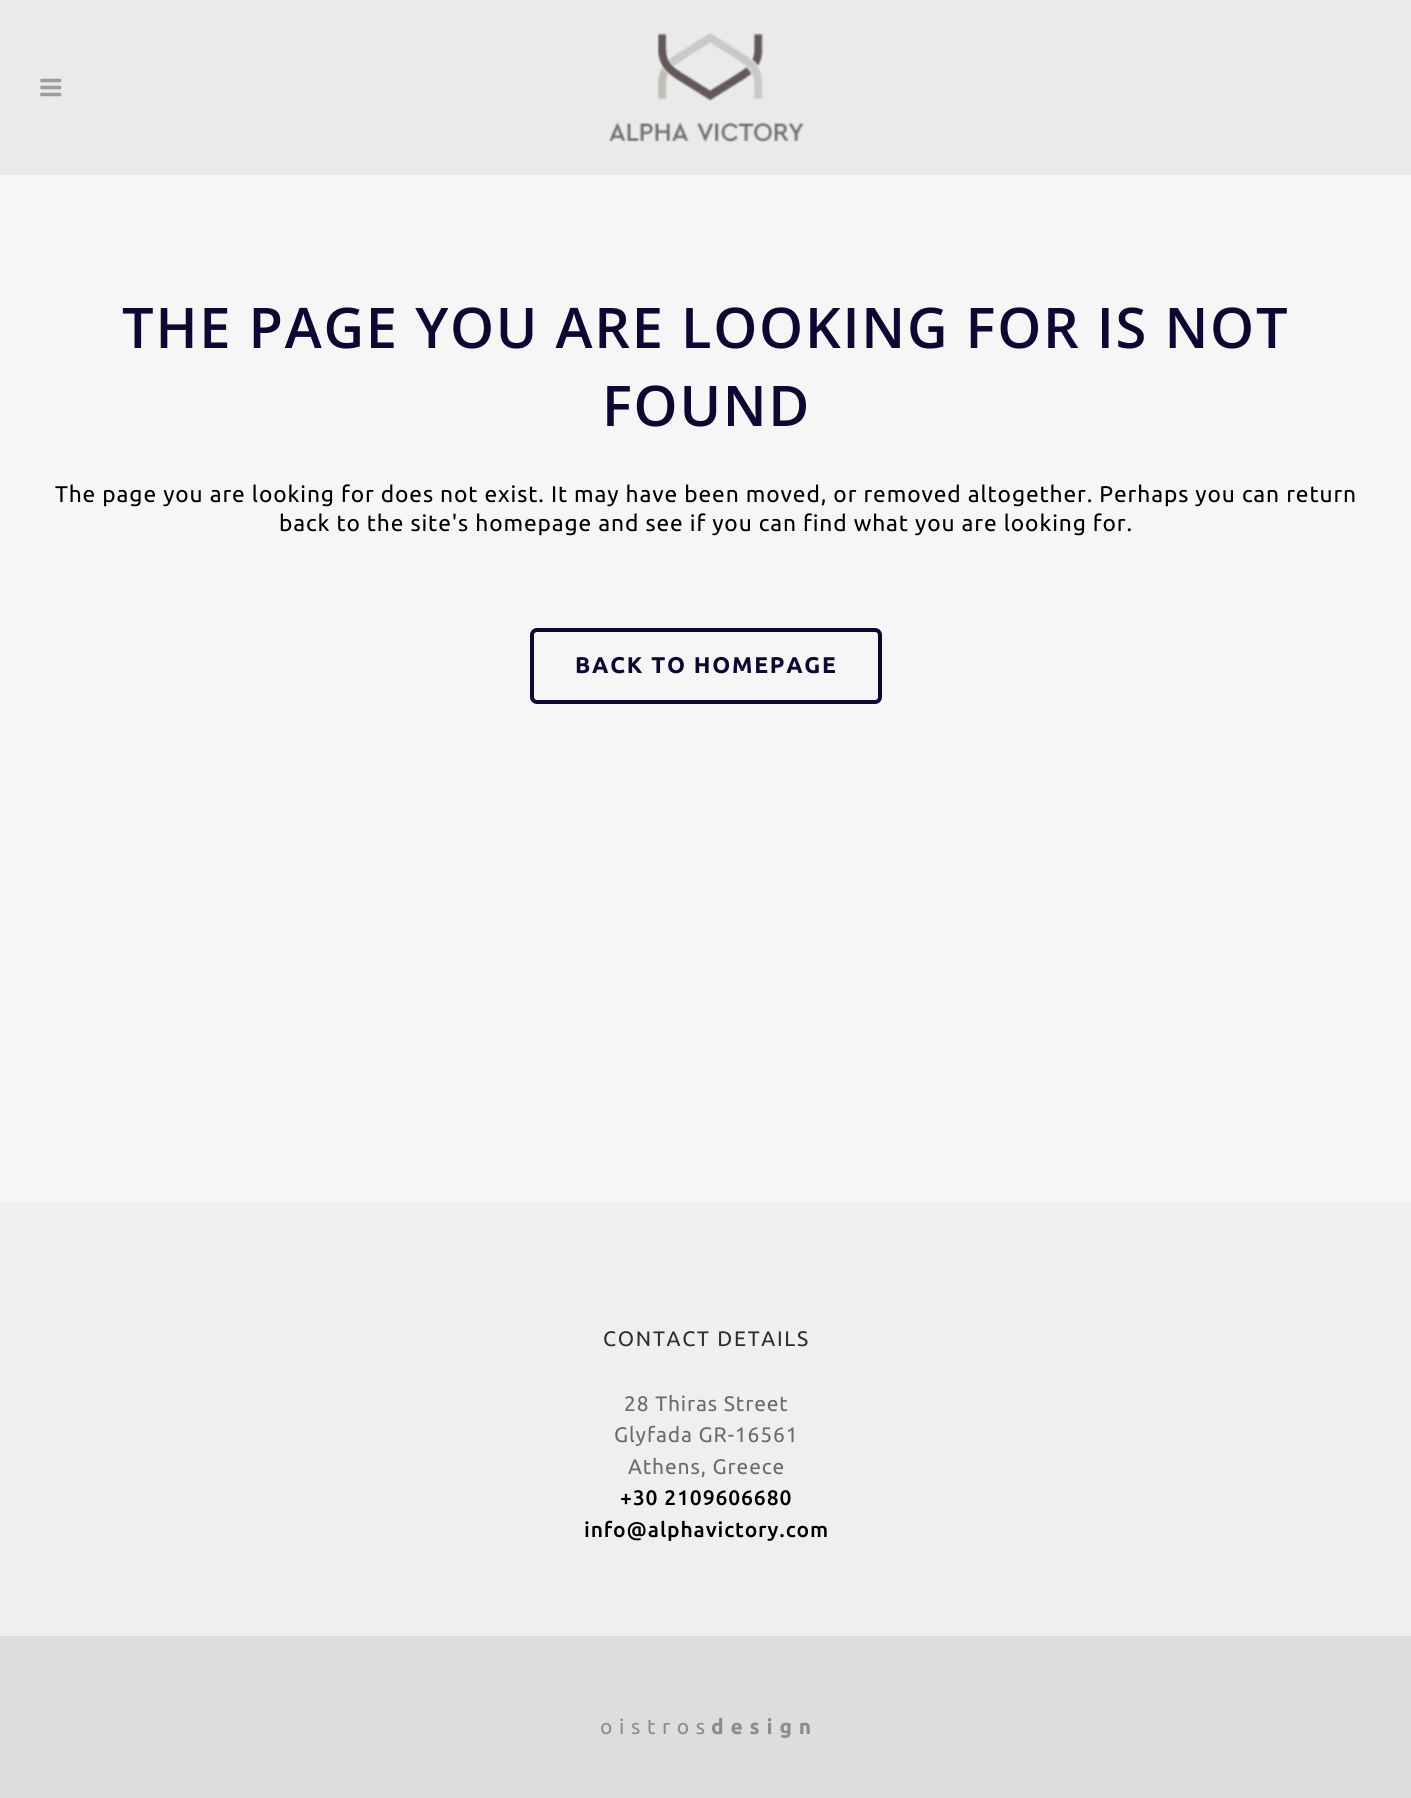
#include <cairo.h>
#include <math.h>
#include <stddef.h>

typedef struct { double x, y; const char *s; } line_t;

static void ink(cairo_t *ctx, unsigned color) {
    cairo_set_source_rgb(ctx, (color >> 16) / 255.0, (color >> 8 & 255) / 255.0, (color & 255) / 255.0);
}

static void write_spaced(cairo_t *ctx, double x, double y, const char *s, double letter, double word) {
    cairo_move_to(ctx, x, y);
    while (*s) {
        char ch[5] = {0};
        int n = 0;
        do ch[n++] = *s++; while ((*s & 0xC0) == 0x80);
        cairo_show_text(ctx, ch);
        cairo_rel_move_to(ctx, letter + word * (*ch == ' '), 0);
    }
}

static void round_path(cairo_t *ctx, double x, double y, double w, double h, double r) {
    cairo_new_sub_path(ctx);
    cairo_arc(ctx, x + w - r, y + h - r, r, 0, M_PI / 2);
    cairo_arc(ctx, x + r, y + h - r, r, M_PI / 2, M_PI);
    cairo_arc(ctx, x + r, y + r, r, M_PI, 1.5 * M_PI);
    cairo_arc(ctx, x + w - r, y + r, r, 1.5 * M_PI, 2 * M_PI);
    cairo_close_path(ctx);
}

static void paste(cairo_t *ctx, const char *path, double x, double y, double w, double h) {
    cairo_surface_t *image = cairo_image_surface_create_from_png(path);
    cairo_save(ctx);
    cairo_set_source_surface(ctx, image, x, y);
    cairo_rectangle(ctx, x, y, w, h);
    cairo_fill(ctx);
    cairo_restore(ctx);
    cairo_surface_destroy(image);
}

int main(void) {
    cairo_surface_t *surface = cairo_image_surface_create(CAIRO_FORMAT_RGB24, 1411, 1798);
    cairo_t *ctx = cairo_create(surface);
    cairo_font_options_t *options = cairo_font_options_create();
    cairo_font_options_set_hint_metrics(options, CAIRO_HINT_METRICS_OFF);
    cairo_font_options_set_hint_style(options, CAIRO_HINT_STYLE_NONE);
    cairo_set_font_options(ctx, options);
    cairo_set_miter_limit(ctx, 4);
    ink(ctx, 0xF6F6F6);
    cairo_paint(ctx);
    ink(ctx, 0xEAEAEA);
    cairo_rectangle(ctx, 0, 0, 1411, 175);
    cairo_fill(ctx);
    paste(ctx, "media/1.png", 40, 78, 22, 19);
    paste(ctx, "media/2.png", 609, 32, 196, 111);
    cairo_select_font_face(ctx, "Open Sans SemiBold", CAIRO_FONT_SLANT_NORMAL, CAIRO_FONT_WEIGHT_NORMAL);
    cairo_set_font_size(ctx, 56);
    ink(ctx, 0x0D0732);
    write_spaced(ctx, 122, 348, "THE PAGE YOU ARE LOOKING FOR IS NOT", 1.75, 0);
    write_spaced(ctx, 602, 426, "FOUND", 1.75, 0);
    cairo_select_font_face(ctx, "Ubuntu", CAIRO_FONT_SLANT_NORMAL, CAIRO_FONT_WEIGHT_NORMAL);
    cairo_set_font_size(ctx, 22.75);
    ink(ctx, 0x000000);
    write_spaced(ctx, 55, 502, "The page you are looking for does not exist. It may have been moved, or removed altogether. Perhaps you can return", 0.88, 0);
    write_spaced(ctx, 279, 531, "back to the site's homepage and see if you can find what you are looking for.", 0.88, 0);
    round_path(ctx, 532, 630, 348, 72, 5);
    ink(ctx, 0x0D0732);
    cairo_set_line_width(ctx, 4);
    cairo_stroke(ctx);
    cairo_select_font_face(ctx, "Ubuntu", CAIRO_FONT_SLANT_NORMAL, CAIRO_FONT_WEIGHT_BOLD);
    write_spaced(ctx, 575, 673, "BACK TO HOMEPAGE", 1.75, 0);
    ink(ctx, 0xEFEFEF);
    cairo_rectangle(ctx, 0, 1202, 1411, 434);
    cairo_fill(ctx);
    cairo_select_font_face(ctx, "Ubuntu", CAIRO_FONT_SLANT_NORMAL, CAIRO_FONT_WEIGHT_NORMAL);
    cairo_set_font_size(ctx, 21);
    ink(ctx, 0x2D2D2D);
    write_spaced(ctx, 603, 1346, "CONTACT DETAILS", 1.75, 0);
    ink(ctx, 0x6B6B6B);
    {
        static const line_t items[] = {
            {624, 1411, "28 Thiras Street"},
            {614, 1442, "Glyfada GR-16561"},
            {628, 1474, "Athens, Greece"},
        };
        for (size_t i = 0; i < sizeof items / sizeof *items; i++) {
            write_spaced(ctx, items[i].x, items[i].y, items[i].s, 0.88, 0);
        }
    }
    cairo_select_font_face(ctx, "Ubuntu Medium", CAIRO_FONT_SLANT_NORMAL, CAIRO_FONT_WEIGHT_NORMAL);
    ink(ctx, 0x000000);
    write_spaced(ctx, 620, 1505, "+30 2109606680", 0.88, 0);
    write_spaced(ctx, 584, 1537, "info@alphavictory.com", 0.88, 0);
    ink(ctx, 0xDDDDDD);
    cairo_rectangle(ctx, 0, 1636, 1411, 162);
    cairo_fill(ctx);
    cairo_select_font_face(ctx, "Ubuntu", CAIRO_FONT_SLANT_NORMAL, CAIRO_FONT_WEIGHT_NORMAL);
    ink(ctx, 0x8C8C8C);
    write_spaced(ctx, 600, 1734, "o i s t r o s", 0.88, 0);
    cairo_select_font_face(ctx, "Ubuntu", CAIRO_FONT_SLANT_NORMAL, CAIRO_FONT_WEIGHT_BOLD);
    write_spaced(ctx, 711, 1734, "d e s i g n", 0.88, 0);
    cairo_surface_write_to_png(surface, "image.png");
    cairo_font_options_destroy(options);
    cairo_destroy(ctx);
    cairo_surface_destroy(surface);
    return 0;
}
